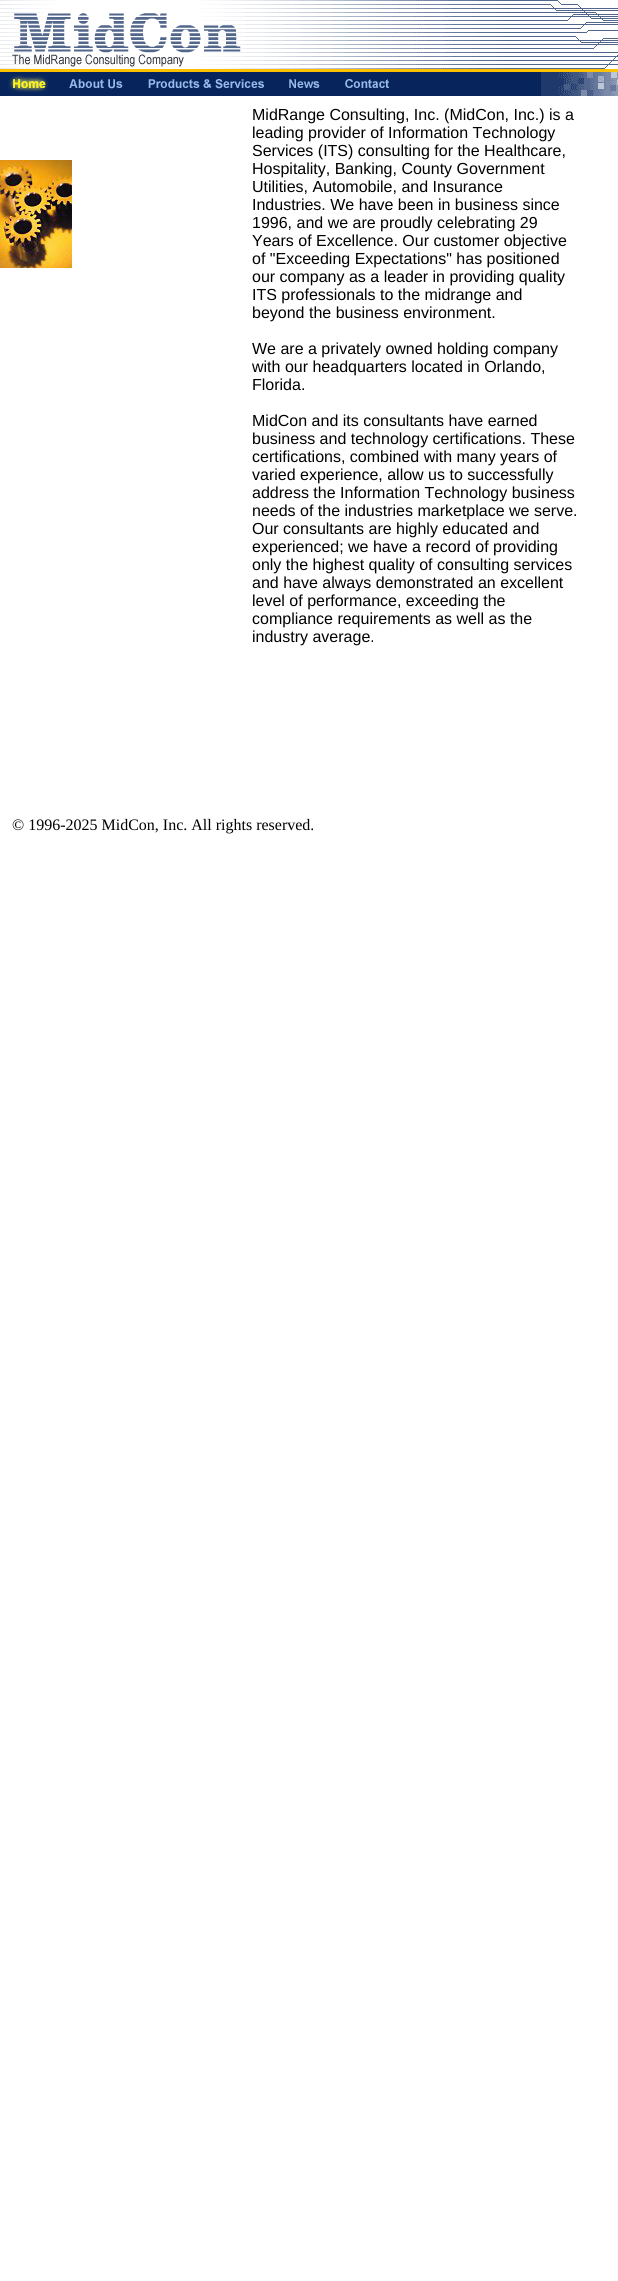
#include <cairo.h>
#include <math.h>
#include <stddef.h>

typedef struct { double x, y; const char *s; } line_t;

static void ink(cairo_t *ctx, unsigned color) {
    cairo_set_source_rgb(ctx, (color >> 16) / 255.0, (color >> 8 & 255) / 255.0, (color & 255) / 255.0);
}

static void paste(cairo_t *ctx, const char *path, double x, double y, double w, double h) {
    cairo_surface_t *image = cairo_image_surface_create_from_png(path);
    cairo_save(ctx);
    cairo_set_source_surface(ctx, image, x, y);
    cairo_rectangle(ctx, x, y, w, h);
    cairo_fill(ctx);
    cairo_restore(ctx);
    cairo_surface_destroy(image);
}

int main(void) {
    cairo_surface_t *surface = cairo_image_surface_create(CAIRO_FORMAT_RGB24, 618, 2281);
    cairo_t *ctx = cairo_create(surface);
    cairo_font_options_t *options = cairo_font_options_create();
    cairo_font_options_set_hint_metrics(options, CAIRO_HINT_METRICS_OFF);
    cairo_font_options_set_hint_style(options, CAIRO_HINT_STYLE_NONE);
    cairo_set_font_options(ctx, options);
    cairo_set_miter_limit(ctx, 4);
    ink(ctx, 0xFFFFFF);
    cairo_paint(ctx);
    paste(ctx, "media/1.png", 0, 0, 246, 69);
    paste(ctx, "media/2.png", 246, 0, 302, 69);
    paste(ctx, "media/3.png", 548, 0, 70, 69);
    paste(ctx, "media/4.png", 0, 69, 618, 3);
    ink(ctx, 0x07245C);
    cairo_rectangle(ctx, 0, 72, 8, 24);
    cairo_fill(ctx);
    paste(ctx, "media/5.png", 8, 72, 40, 24);
    cairo_rectangle(ctx, 48, 72, 16, 24);
    cairo_fill(ctx);
    paste(ctx, "media/6.png", 64, 72, 63, 24);
    cairo_rectangle(ctx, 127, 72, 15, 24);
    cairo_fill(ctx);
    paste(ctx, "media/7.png", 142, 72, 127, 24);
    cairo_rectangle(ctx, 269, 72, 14, 24);
    cairo_fill(ctx);
    paste(ctx, "media/8.png", 283, 72, 43, 24);
    cairo_rectangle(ctx, 326, 72, 14, 24);
    cairo_fill(ctx);
    paste(ctx, "media/9.png", 340, 72, 53, 24);
    cairo_rectangle(ctx, 393, 72, 148, 24);
    cairo_fill(ctx);
    paste(ctx, "media/10.png", 541, 72, 77, 24);
    paste(ctx, "media/11.png", 0, 160, 72, 108);
    cairo_select_font_face(ctx, "Liberation Sans", CAIRO_FONT_SLANT_NORMAL, CAIRO_FONT_WEIGHT_NORMAL);
    cairo_set_font_size(ctx, 16);
    ink(ctx, 0x000000);
    {
        static const line_t items[] = {
            {252, 120, "MidRange Consulting, Inc. (MidCon, Inc.) is a"},
            {252, 138, "leading provider of Information Technology"},
            {252, 156, "Services (ITS) consulting for the Healthcare,"},
            {252, 174, "Hospitality, Banking, County Government"},
            {252, 192, "Utilities, Automobile, and Insurance"},
            {252, 210, "Industries. We have been in business since"},
            {252, 228, "1996, and we are proudly celebrating 29"},
            {252, 246, "Years of Excellence. Our customer objective"},
            {252, 264, "of \"Exceeding Expectations\" has positioned"},
            {252, 282, "our company as a leader in providing quality"},
            {252, 300, "ITS professionals to the midrange and"},
            {252, 318, "beyond the business environment."},
            {252, 354, "We are a privately owned holding company"},
            {252, 372, "with our headquarters located in Orlando,"},
            {252, 390, "Florida."},
            {252, 426, "MidCon and its consultants have earned"},
            {252, 444, "business and technology certifications. These"},
            {252, 462, "certifications, combined with many years of"},
            {252, 480, "varied experience, allow us to successfully"},
            {252, 498, "address the Information Technology business"},
            {252, 516, "needs of the industries marketplace we serve."},
            {252, 534, "Our consultants are highly educated and"},
            {252, 552, "experienced; we have a record of providing"},
            {252, 570, "only the highest quality of consulting services"},
            {252, 588, "and have always demonstrated an excellent"},
            {252, 606, "level of performance, exceeding the"},
            {252, 624, "compliance requirements as well as the"},
            {252, 642, "industry average."},
        };
        for (size_t i = 0; i < sizeof items / sizeof *items; i++) {
            cairo_move_to(ctx, items[i].x, items[i].y);
            cairo_show_text(ctx, items[i].s);
        }
    }
    cairo_select_font_face(ctx, "Liberation Serif", CAIRO_FONT_SLANT_NORMAL, CAIRO_FONT_WEIGHT_NORMAL);
    cairo_move_to(ctx, 12, 830);
    cairo_show_text(ctx, "© 1996-2025 MidCon, Inc. All rights reserved.");
    cairo_surface_write_to_png(surface, "image.png");
    cairo_font_options_destroy(options);
    cairo_destroy(ctx);
    cairo_surface_destroy(surface);
    return 0;
}
